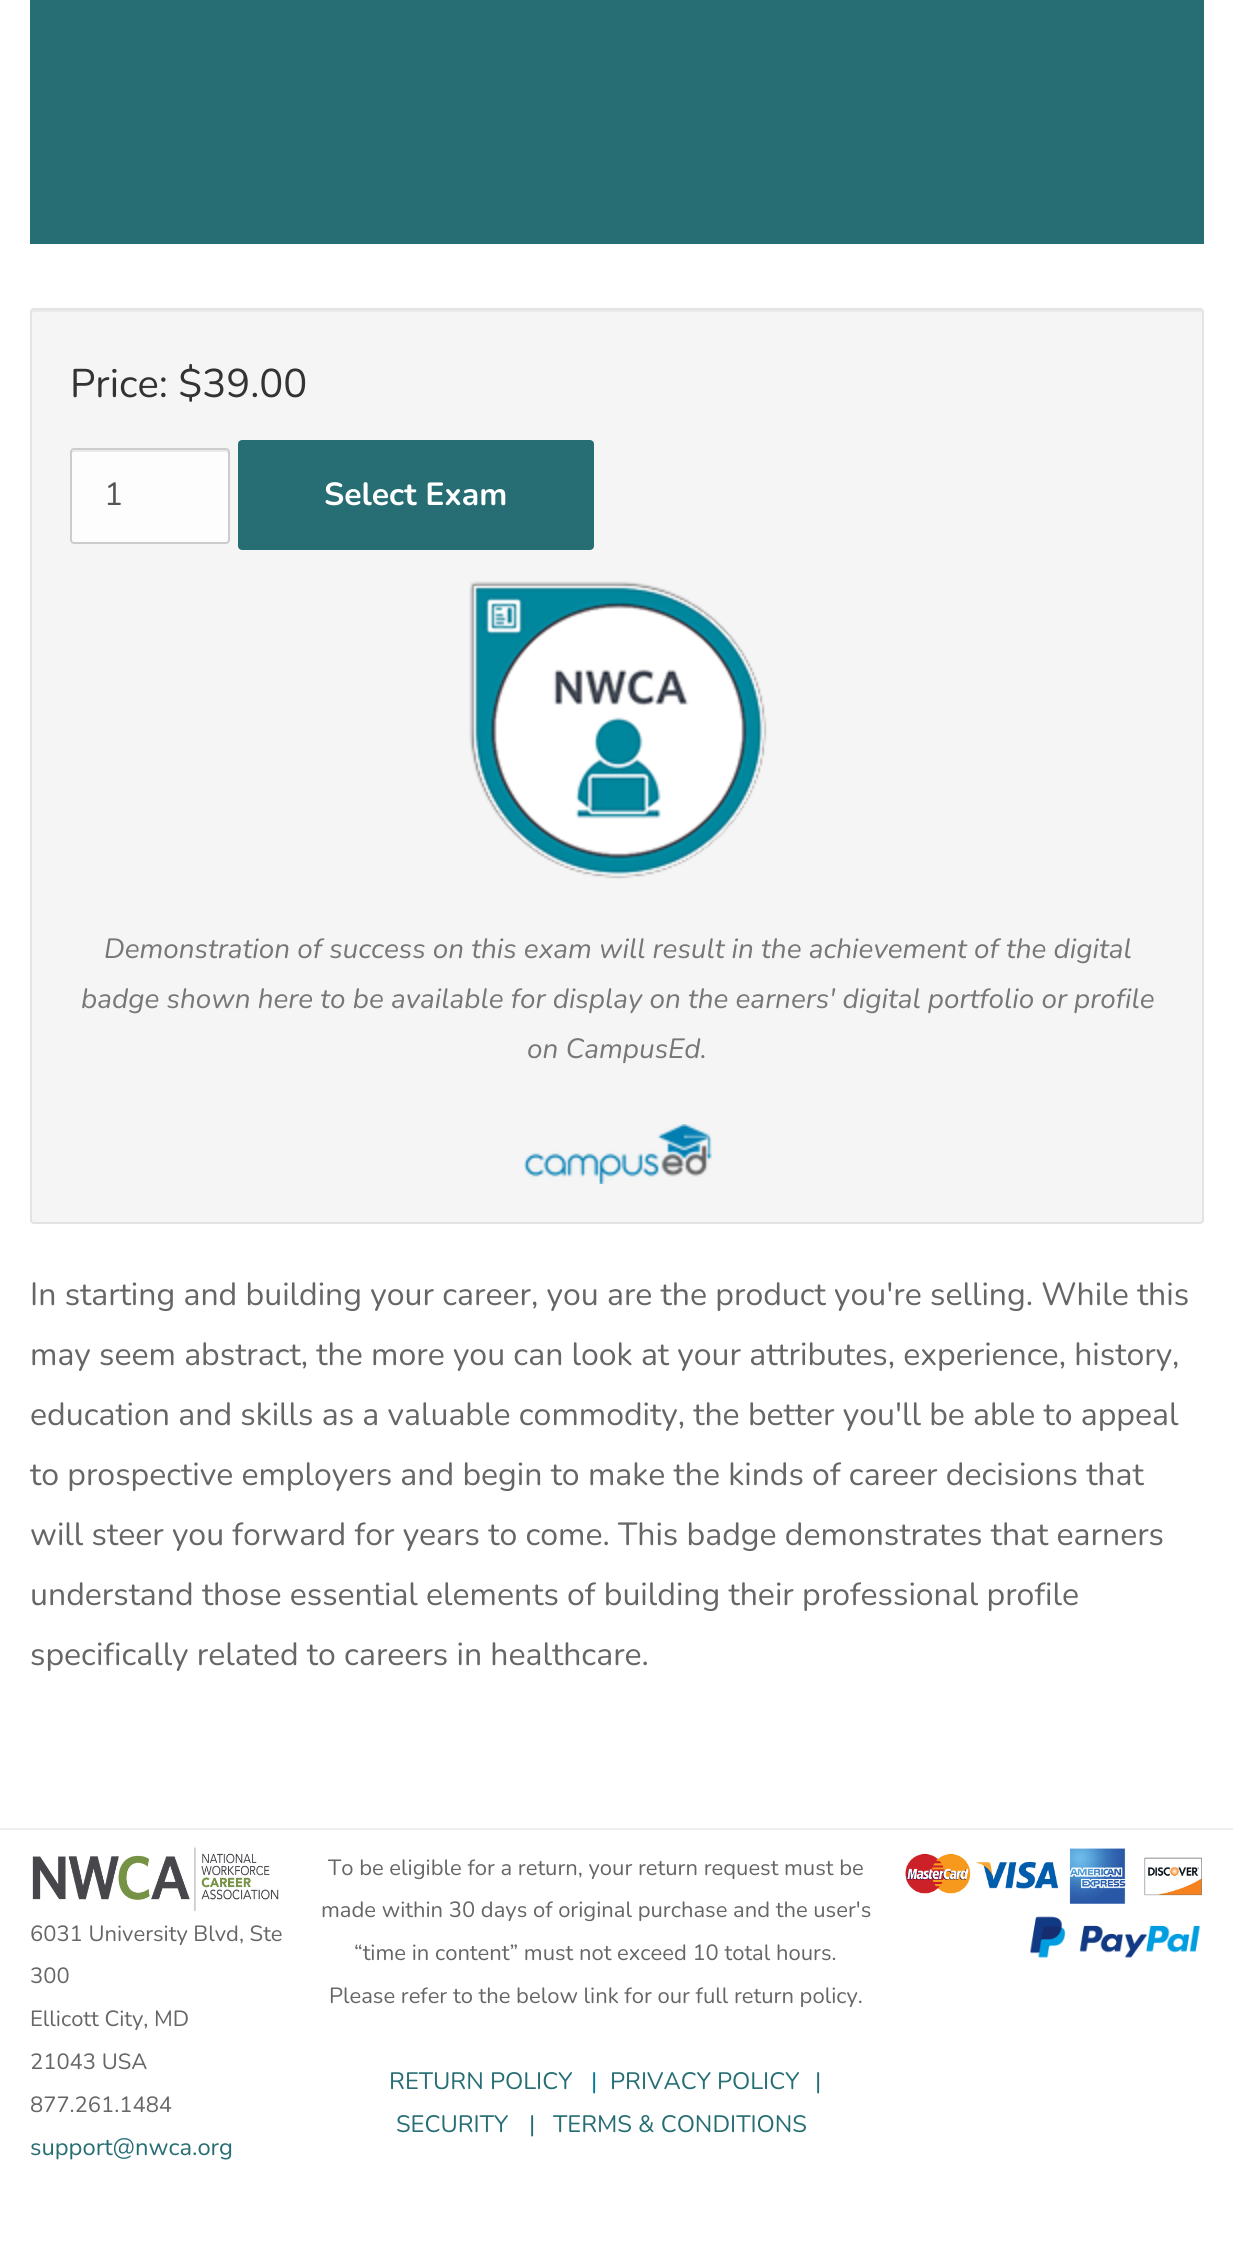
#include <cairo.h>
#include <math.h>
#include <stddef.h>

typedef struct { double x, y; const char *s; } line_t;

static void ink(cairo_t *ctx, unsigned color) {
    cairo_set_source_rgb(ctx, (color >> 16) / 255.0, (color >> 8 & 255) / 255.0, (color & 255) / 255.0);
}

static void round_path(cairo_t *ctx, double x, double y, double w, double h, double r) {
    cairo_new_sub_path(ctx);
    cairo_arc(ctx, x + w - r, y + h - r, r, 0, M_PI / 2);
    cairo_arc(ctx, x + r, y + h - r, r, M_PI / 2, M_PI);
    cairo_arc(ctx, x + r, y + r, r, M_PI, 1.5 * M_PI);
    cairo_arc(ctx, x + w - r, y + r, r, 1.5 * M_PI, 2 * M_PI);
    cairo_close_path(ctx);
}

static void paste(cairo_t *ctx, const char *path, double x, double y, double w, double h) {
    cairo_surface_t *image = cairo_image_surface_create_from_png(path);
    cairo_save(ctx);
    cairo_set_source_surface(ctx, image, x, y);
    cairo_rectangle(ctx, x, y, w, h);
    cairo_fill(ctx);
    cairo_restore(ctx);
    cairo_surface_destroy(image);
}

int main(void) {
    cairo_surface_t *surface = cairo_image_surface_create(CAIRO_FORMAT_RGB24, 1233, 2243);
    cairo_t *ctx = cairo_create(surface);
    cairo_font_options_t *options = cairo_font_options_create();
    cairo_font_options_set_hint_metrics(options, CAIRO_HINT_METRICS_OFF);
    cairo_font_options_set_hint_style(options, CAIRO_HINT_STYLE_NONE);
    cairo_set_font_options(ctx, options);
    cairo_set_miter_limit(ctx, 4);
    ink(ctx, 0xFFFFFF);
    cairo_paint(ctx);
    ink(ctx, 0x266E73);
    cairo_rectangle(ctx, 30, 0, 1174, 244);
    cairo_fill(ctx);
    ink(ctx, 0xF5F5F5);
    round_path(ctx, 30, 308, 1174, 916, 4);
    cairo_fill(ctx);
    ink(ctx, 0xE9E9E9);
    cairo_new_path(ctx);
    cairo_move_to(ctx, 34, 312);
    cairo_line_to(ctx, 1200, 312);
    cairo_curve_to(ctx, 1201, 312, 1202, 313, 1202, 314);
    cairo_curve_to(ctx, 1202, 312, 1202, 310, 1200, 310);
    cairo_line_to(ctx, 33, 310);
    cairo_line_to(ctx, 32, 311);
    cairo_line_to(ctx, 32, 314);
    cairo_curve_to(ctx, 32, 313, 33, 312, 34, 312);
    cairo_close_path(ctx);
    cairo_fill(ctx);
    round_path(ctx, 31, 309, 1172, 914, 3);
    ink(ctx, 0xE3E3E3);
    cairo_stroke(ctx);
    cairo_select_font_face(ctx, "Nunito", CAIRO_FONT_SLANT_NORMAL, CAIRO_FONT_WEIGHT_NORMAL);
    cairo_set_font_size(ctx, 40);
    ink(ctx, 0x333333);
    cairo_move_to(ctx, 70, 397);
    cairo_show_text(ctx, "Price: $39.00");
    ink(ctx, 0xFDFDFD);
    round_path(ctx, 70, 448, 160, 96, 4);
    cairo_fill(ctx);
    ink(ctx, 0xEAEAEA);
    cairo_new_path(ctx);
    cairo_move_to(ctx, 74, 452);
    cairo_line_to(ctx, 226, 452);
    cairo_curve_to(ctx, 227, 452, 228, 453, 228, 454);
    cairo_line_to(ctx, 228, 452);
    cairo_curve_to(ctx, 228, 451, 227, 450, 226, 450);
    cairo_line_to(ctx, 74, 450);
    cairo_curve_to(ctx, 73, 450, 72, 451, 72, 452);
    cairo_line_to(ctx, 72, 454);
    cairo_curve_to(ctx, 72, 453, 73, 452, 74, 452);
    cairo_close_path(ctx);
    cairo_fill(ctx);
    round_path(ctx, 71, 449, 158, 94, 3);
    ink(ctx, 0xCCCCCC);
    cairo_stroke(ctx);
    cairo_set_font_size(ctx, 32);
    ink(ctx, 0x555555);
    cairo_move_to(ctx, 104, 505);
    cairo_show_text(ctx, "1");
    ink(ctx, 0x266E73);
    round_path(ctx, 239, 441, 354, 108, 3);
    cairo_fill_preserve(ctx);
    cairo_stroke(ctx);
    cairo_select_font_face(ctx, "Nunito", CAIRO_FONT_SLANT_NORMAL, CAIRO_FONT_WEIGHT_BOLD);
    ink(ctx, 0xFFFFFF);
    cairo_move_to(ctx, 324, 505);
    cairo_show_text(ctx, "Select Exam");
    paste(ctx, "media/1.png", 469, 581, 298, 298);
    cairo_select_font_face(ctx, "Nunito", CAIRO_FONT_SLANT_ITALIC, CAIRO_FONT_WEIGHT_NORMAL);
    cairo_set_font_size(ctx, 27.85);
    ink(ctx, 0x777777);
    {
        static const line_t items[] = {
            {104, 958, "Demonstration of success on this exam will result in the achievement of the digital"},
            {81, 1008, "badge shown here to be available for display on the earners' digital portfolio or profile"},
            {527, 1058, "on CampusEd."},
        };
        for (size_t i = 0; i < sizeof items / sizeof *items; i++) {
            cairo_move_to(ctx, items[i].x, items[i].y);
            cairo_show_text(ctx, items[i].s);
        }
    }
    paste(ctx, "media/2.png", 524, 1124, 188, 60);
    cairo_select_font_face(ctx, "Nunito", CAIRO_FONT_SLANT_NORMAL, CAIRO_FONT_WEIGHT_NORMAL);
    cairo_set_font_size(ctx, 32);
    ink(ctx, 0x666666);
    {
        static const line_t items[] = {
            {30, 1305, "In starting and building your career, you are the product you're selling. While this"},
            {30, 1365, "may seem abstract, the more you can look at your attributes, experience, history,"},
            {30, 1425, "education and skills as a valuable commodity, the better you'll be able to appeal"},
            {30, 1485, "to prospective employers and begin to make the kinds of career decisions that"},
            {30, 1545, "will steer you forward for years to come. This badge demonstrates that earners"},
            {30, 1605, "understand those essential elements of building their professional profile"},
            {30, 1665, "specifically related to careers in healthcare."},
        };
        for (size_t i = 0; i < sizeof items / sizeof *items; i++) {
            cairo_move_to(ctx, items[i].x, items[i].y);
            cairo_show_text(ctx, items[i].s);
        }
    }
    ink(ctx, 0xEFEFEF);
    cairo_rectangle(ctx, 0, 1828, 1233, 2);
    cairo_fill(ctx);
    paste(ctx, "media/3.png", 32, 1847, 247, 64);
    cairo_set_font_size(ctx, 22);
    ink(ctx, 0x666666);
    {
        static const line_t items[] = {
            {30, 1941, "6031 University Blvd, Ste"},
            {30, 1983, "300"},
            {30, 2026, "Ellicott City, MD"},
            {30, 2069, "21043 USA"},
            {30, 2112, "877.261.1484"},
        };
        for (size_t i = 0; i < sizeof items / sizeof *items; i++) {
            cairo_move_to(ctx, items[i].x, items[i].y);
            cairo_show_text(ctx, items[i].s);
        }
    }
    cairo_set_font_size(ctx, 23.75);
    ink(ctx, 0x266E73);
    cairo_move_to(ctx, 30, 2155);
    cairo_show_text(ctx, "support@nwca.org");
    cairo_set_font_size(ctx, 22);
    ink(ctx, 0x666666);
    {
        static const line_t items[] = {
            {328, 1875, "To be eligible for a return, your return request must be"},
            {321, 1917, "made within 30 days of original purchase and the user's"},
            {354, 1960, "“time in content” must not exceed 10 total hours."},
            {329, 2003, "Please refer to the below link for our full return policy."},
        };
        for (size_t i = 0; i < sizeof items / sizeof *items; i++) {
            cairo_move_to(ctx, items[i].x, items[i].y);
            cairo_show_text(ctx, items[i].s);
        }
    }
    cairo_set_font_size(ctx, 23.75);
    ink(ctx, 0x266E73);
    cairo_move_to(ctx, 389, 2089);
    cairo_show_text(ctx, "RETURN POLICY");
    ink(ctx, 0x00789E);
    cairo_move_to(ctx, 591, 2089);
    cairo_show_text(ctx, "|");
    ink(ctx, 0x266E73);
    {
        static const line_t items[] = {
            {610, 2089, "PRIVACY POLICY"},
            {815, 2089, "|"},
            {396, 2132, "SECURITY"},
            {529, 2132, "|"},
            {553, 2132, "TERMS & CONDITIONS"},
        };
        for (size_t i = 0; i < sizeof items / sizeof *items; i++) {
            cairo_move_to(ctx, items[i].x, items[i].y);
            cairo_show_text(ctx, items[i].s);
        }
    }
    paste(ctx, "media/4.png", 905, 1848, 297, 56);
    paste(ctx, "media/5.png", 1030, 1916, 170, 42);
    cairo_surface_write_to_png(surface, "image.png");
    cairo_font_options_destroy(options);
    cairo_destroy(ctx);
    cairo_surface_destroy(surface);
    return 0;
}
